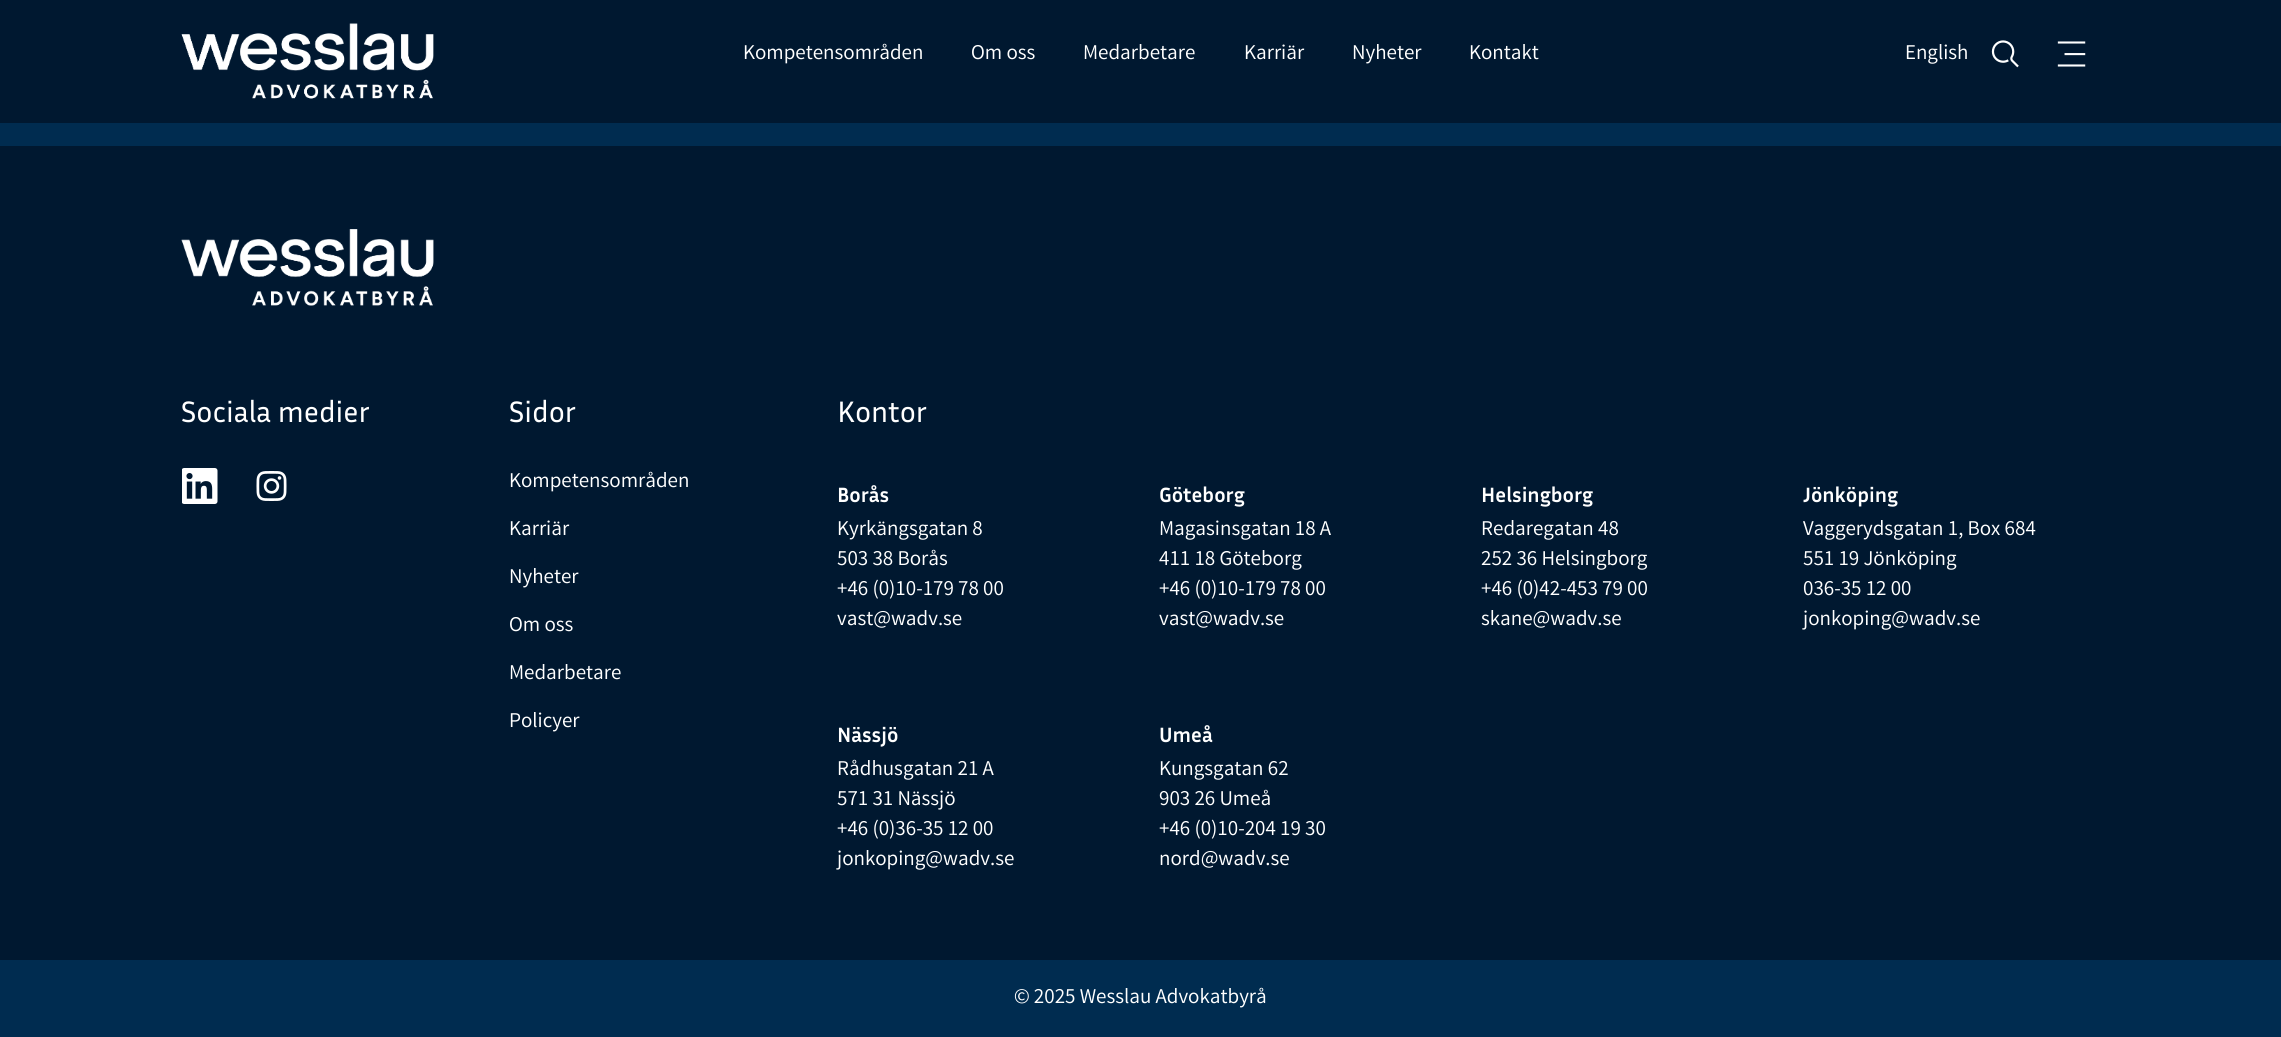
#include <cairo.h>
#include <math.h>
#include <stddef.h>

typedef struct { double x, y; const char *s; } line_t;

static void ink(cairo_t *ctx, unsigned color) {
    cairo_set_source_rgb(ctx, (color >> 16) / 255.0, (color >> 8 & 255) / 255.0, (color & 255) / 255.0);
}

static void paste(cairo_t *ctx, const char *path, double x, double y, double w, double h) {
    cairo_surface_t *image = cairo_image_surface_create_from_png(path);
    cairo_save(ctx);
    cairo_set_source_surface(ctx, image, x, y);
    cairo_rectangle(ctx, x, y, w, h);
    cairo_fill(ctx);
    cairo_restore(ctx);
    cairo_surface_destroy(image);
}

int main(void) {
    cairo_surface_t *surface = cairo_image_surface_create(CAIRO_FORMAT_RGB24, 2281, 1037);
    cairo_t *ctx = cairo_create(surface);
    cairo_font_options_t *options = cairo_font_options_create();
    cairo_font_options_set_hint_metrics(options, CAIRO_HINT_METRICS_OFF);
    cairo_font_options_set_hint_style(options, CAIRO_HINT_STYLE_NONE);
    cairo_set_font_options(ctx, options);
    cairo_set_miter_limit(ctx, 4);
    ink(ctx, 0x002C50);
    cairo_paint(ctx);
    ink(ctx, 0x001830);
    cairo_rectangle(ctx, 0, 0, 2281, 123);
    cairo_fill(ctx);
    paste(ctx, "media/1.png", 181, 23, 253, 76);
    cairo_select_font_face(ctx, "Varta", CAIRO_FONT_SLANT_NORMAL, CAIRO_FONT_WEIGHT_NORMAL);
    cairo_set_font_size(ctx, 21);
    ink(ctx, 0xFFFFFF);
    {
        static const line_t items[] = {
            {743, 59, "Kompetensområden"},
            {971, 59, "Om oss"},
            {1083, 59, "Medarbetare"},
            {1244, 59, "Karriär"},
            {1352, 59, "Nyheter"},
            {1469, 59, "Kontakt"},
            {1905, 59, "English"},
        };
        for (size_t i = 0; i < sizeof items / sizeof *items; i++) {
            cairo_move_to(ctx, items[i].x, items[i].y);
            cairo_show_text(ctx, items[i].s);
        }
    }
    paste(ctx, "media/2.png", 1991, 40, 28, 28);
    paste(ctx, "media/3.png", 2057, 41, 29, 26);
    ink(ctx, 0x001830);
    cairo_rectangle(ctx, 0, 146, 2281, 814);
    cairo_fill(ctx);
    paste(ctx, "media/4.png", 181, 229, 253, 77);
    cairo_select_font_face(ctx, "Inria Sans", CAIRO_FONT_SLANT_NORMAL, CAIRO_FONT_WEIGHT_NORMAL);
    cairo_set_font_size(ctx, 30);
    ink(ctx, 0xFFFFFF);
    cairo_move_to(ctx, 181, 422);
    cairo_show_text(ctx, "Sociala medier");
    paste(ctx, "media/5.png", 182, 468, 36, 36);
    paste(ctx, "media/6.png", 256, 471, 31, 30);
    cairo_move_to(ctx, 509, 422);
    cairo_show_text(ctx, "Sidor");
    cairo_select_font_face(ctx, "Varta", CAIRO_FONT_SLANT_NORMAL, CAIRO_FONT_WEIGHT_NORMAL);
    cairo_set_font_size(ctx, 21);
    {
        static const line_t items[] = {
            {509, 487, "Kompetensområden"},
            {509, 535, "Karriär"},
            {509, 583, "Nyheter"},
            {509, 631, "Om oss"},
            {509, 679, "Medarbetare"},
            {509, 727, "Policyer"},
        };
        for (size_t i = 0; i < sizeof items / sizeof *items; i++) {
            cairo_move_to(ctx, items[i].x, items[i].y);
            cairo_show_text(ctx, items[i].s);
        }
    }
    cairo_select_font_face(ctx, "Inria Sans", CAIRO_FONT_SLANT_NORMAL, CAIRO_FONT_WEIGHT_NORMAL);
    cairo_set_font_size(ctx, 30);
    cairo_move_to(ctx, 837, 422);
    cairo_show_text(ctx, "Kontor");
    cairo_select_font_face(ctx, "Inria Sans", CAIRO_FONT_SLANT_NORMAL, CAIRO_FONT_WEIGHT_BOLD);
    cairo_set_font_size(ctx, 21);
    cairo_move_to(ctx, 837, 502);
    cairo_show_text(ctx, "Borås");
    cairo_select_font_face(ctx, "Varta", CAIRO_FONT_SLANT_NORMAL, CAIRO_FONT_WEIGHT_NORMAL);
    {
        static const line_t items[] = {
            {837, 535, "Kyrkängsgatan 8"},
            {837, 565, "503 38 Borås"},
            {837, 595, "+46 (0)10-179 78 00"},
            {837, 625, "vast@wadv.se"},
        };
        for (size_t i = 0; i < sizeof items / sizeof *items; i++) {
            cairo_move_to(ctx, items[i].x, items[i].y);
            cairo_show_text(ctx, items[i].s);
        }
    }
    cairo_select_font_face(ctx, "Inria Sans", CAIRO_FONT_SLANT_NORMAL, CAIRO_FONT_WEIGHT_BOLD);
    cairo_move_to(ctx, 1159, 502);
    cairo_show_text(ctx, "Göteborg");
    cairo_select_font_face(ctx, "Varta", CAIRO_FONT_SLANT_NORMAL, CAIRO_FONT_WEIGHT_NORMAL);
    {
        static const line_t items[] = {
            {1159, 535, "Magasinsgatan 18 A"},
            {1159, 565, "411 18 Göteborg"},
            {1159, 595, "+46 (0)10-179 78 00"},
            {1159, 625, "vast@wadv.se"},
        };
        for (size_t i = 0; i < sizeof items / sizeof *items; i++) {
            cairo_move_to(ctx, items[i].x, items[i].y);
            cairo_show_text(ctx, items[i].s);
        }
    }
    cairo_select_font_face(ctx, "Inria Sans", CAIRO_FONT_SLANT_NORMAL, CAIRO_FONT_WEIGHT_BOLD);
    cairo_move_to(ctx, 1481, 502);
    cairo_show_text(ctx, "Helsingborg");
    cairo_select_font_face(ctx, "Varta", CAIRO_FONT_SLANT_NORMAL, CAIRO_FONT_WEIGHT_NORMAL);
    {
        static const line_t items[] = {
            {1481, 535, "Redaregatan 48"},
            {1481, 565, "252 36 Helsingborg"},
            {1481, 595, "+46 (0)42-453 79 00"},
            {1481, 625, "skane@wadv.se"},
        };
        for (size_t i = 0; i < sizeof items / sizeof *items; i++) {
            cairo_move_to(ctx, items[i].x, items[i].y);
            cairo_show_text(ctx, items[i].s);
        }
    }
    cairo_select_font_face(ctx, "Inria Sans", CAIRO_FONT_SLANT_NORMAL, CAIRO_FONT_WEIGHT_BOLD);
    cairo_move_to(ctx, 1803, 502);
    cairo_show_text(ctx, "Jönköping");
    cairo_select_font_face(ctx, "Varta", CAIRO_FONT_SLANT_NORMAL, CAIRO_FONT_WEIGHT_NORMAL);
    {
        static const line_t items[] = {
            {1803, 535, "Vaggerydsgatan 1, Box 684"},
            {1803, 565, "551 19 Jönköping"},
            {1803, 595, "036-35 12 00"},
            {1803, 625, "jonkoping@wadv.se"},
        };
        for (size_t i = 0; i < sizeof items / sizeof *items; i++) {
            cairo_move_to(ctx, items[i].x, items[i].y);
            cairo_show_text(ctx, items[i].s);
        }
    }
    cairo_select_font_face(ctx, "Inria Sans", CAIRO_FONT_SLANT_NORMAL, CAIRO_FONT_WEIGHT_BOLD);
    cairo_move_to(ctx, 837, 742);
    cairo_show_text(ctx, "Nässjö");
    cairo_select_font_face(ctx, "Varta", CAIRO_FONT_SLANT_NORMAL, CAIRO_FONT_WEIGHT_NORMAL);
    {
        static const line_t items[] = {
            {837, 775, "Rådhusgatan 21 A"},
            {837, 805, "571 31 Nässjö"},
            {837, 835, "+46 (0)36-35 12 00"},
            {837, 865, "jonkoping@wadv.se"},
        };
        for (size_t i = 0; i < sizeof items / sizeof *items; i++) {
            cairo_move_to(ctx, items[i].x, items[i].y);
            cairo_show_text(ctx, items[i].s);
        }
    }
    cairo_select_font_face(ctx, "Inria Sans", CAIRO_FONT_SLANT_NORMAL, CAIRO_FONT_WEIGHT_BOLD);
    cairo_move_to(ctx, 1159, 742);
    cairo_show_text(ctx, "Umeå");
    cairo_select_font_face(ctx, "Varta", CAIRO_FONT_SLANT_NORMAL, CAIRO_FONT_WEIGHT_NORMAL);
    {
        static const line_t items[] = {
            {1159, 775, "Kungsgatan 62"},
            {1159, 805, "903 26 Umeå"},
            {1159, 835, "+46 (0)10-204 19 30"},
            {1159, 865, "nord@wadv.se"},
            {1014, 1003, "© 2025 Wesslau Advokatbyrå"},
        };
        for (size_t i = 0; i < sizeof items / sizeof *items; i++) {
            cairo_move_to(ctx, items[i].x, items[i].y);
            cairo_show_text(ctx, items[i].s);
        }
    }
    cairo_surface_write_to_png(surface, "image.png");
    cairo_font_options_destroy(options);
    cairo_destroy(ctx);
    cairo_surface_destroy(surface);
    return 0;
}
